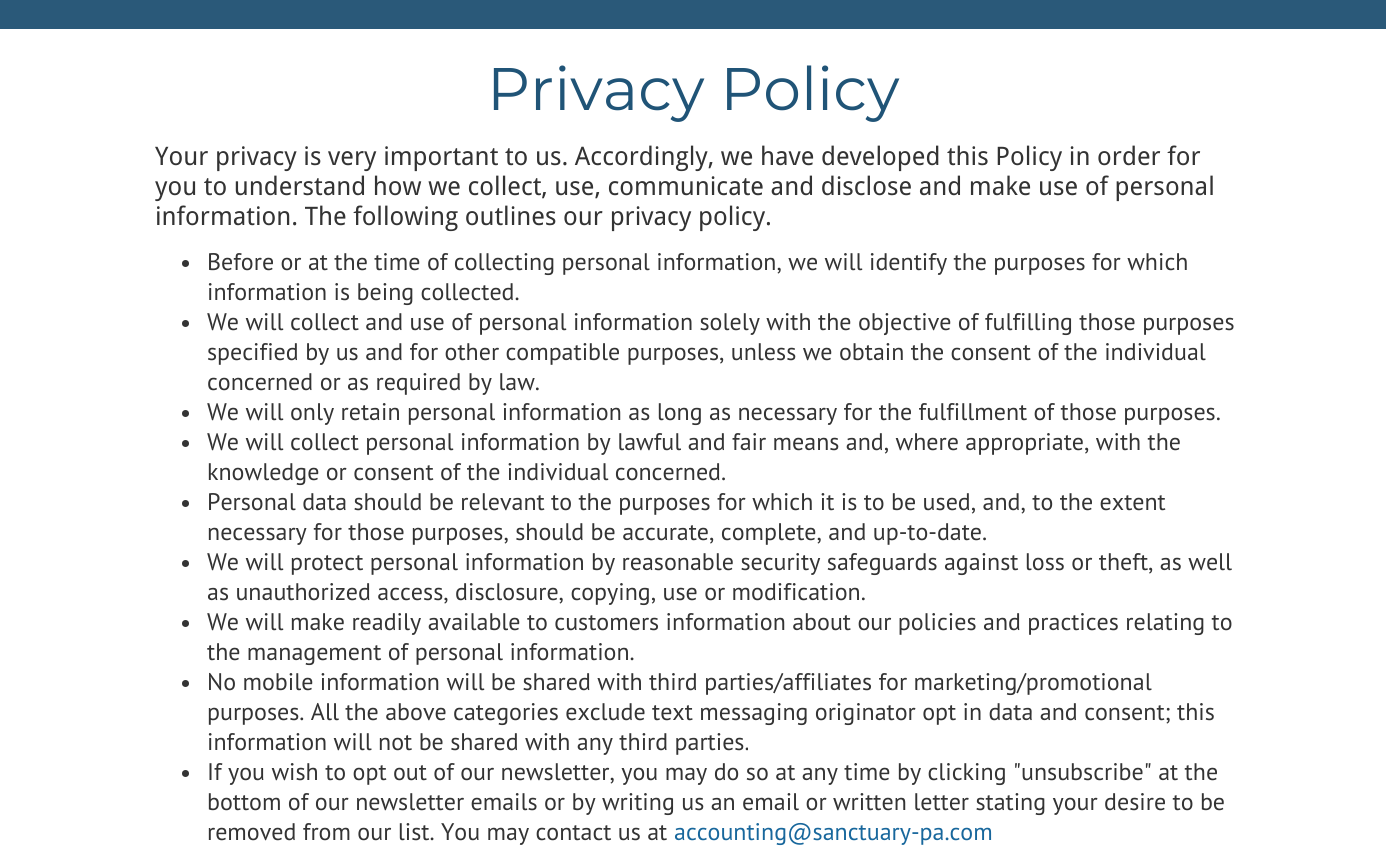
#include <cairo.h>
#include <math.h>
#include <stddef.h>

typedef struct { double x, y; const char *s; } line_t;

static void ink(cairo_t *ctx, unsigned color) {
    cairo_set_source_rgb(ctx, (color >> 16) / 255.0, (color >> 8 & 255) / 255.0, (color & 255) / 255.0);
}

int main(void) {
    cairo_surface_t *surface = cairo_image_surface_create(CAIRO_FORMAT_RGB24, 1386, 855);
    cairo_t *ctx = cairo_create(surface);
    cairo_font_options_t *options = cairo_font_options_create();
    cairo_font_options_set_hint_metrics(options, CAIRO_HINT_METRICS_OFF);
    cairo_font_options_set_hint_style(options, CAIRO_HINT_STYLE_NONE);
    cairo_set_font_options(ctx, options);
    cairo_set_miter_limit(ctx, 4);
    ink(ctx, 0xFFFFFF);
    cairo_paint(ctx);
    ink(ctx, 0x2A5979);
    cairo_rectangle(ctx, 0, 0, 1386, 29);
    cairo_fill(ctx);
    cairo_select_font_face(ctx, "Montserrat", CAIRO_FONT_SLANT_NORMAL, CAIRO_FONT_WEIGHT_NORMAL);
    cairo_set_font_size(ctx, 60);
    ink(ctx, 0x205477);
    cairo_move_to(ctx, 487, 110);
    cairo_show_text(ctx, "Privacy Policy");
    cairo_select_font_face(ctx, "Droid Sans", CAIRO_FONT_SLANT_NORMAL, CAIRO_FONT_WEIGHT_NORMAL);
    cairo_set_font_size(ctx, 25.5);
    ink(ctx, 0x333333);
    {
        static const line_t items[] = {
            {155, 165, "Your privacy is very important to us. Accordingly, we have developed this Policy in order for"},
            {155, 195, "you to understand how we collect, use, communicate and disclose and make use of personal"},
            {155, 225, "information. The following outlines our privacy policy."},
        };
        for (size_t i = 0; i < sizeof items / sizeof *items; i++) {
            cairo_move_to(ctx, items[i].x, items[i].y);
            cairo_show_text(ctx, items[i].s);
        }
    }
    cairo_new_path(ctx);
    cairo_arc(ctx, 185.5, 263.5, 3.5, 0, 2 * M_PI);
    cairo_fill(ctx);
    cairo_select_font_face(ctx, "PT Sans", CAIRO_FONT_SLANT_NORMAL, CAIRO_FONT_WEIGHT_NORMAL);
    cairo_set_font_size(ctx, 24);
    cairo_move_to(ctx, 207, 270);
    cairo_show_text(ctx, "Before or at the time of collecting personal information, we will identify the purposes for which");
    cairo_move_to(ctx, 207, 300);
    cairo_show_text(ctx, "information is being collected.");
    cairo_new_path(ctx);
    cairo_arc(ctx, 185.5, 323.5, 3.5, 0, 2 * M_PI);
    cairo_fill(ctx);
    {
        static const line_t items[] = {
            {207, 330, "We will collect and use of personal information solely with the objective of fulfilling those purposes"},
            {207, 360, "specified by us and for other compatible purposes, unless we obtain the consent of the individual"},
            {207, 390, "concerned or as required by law."},
        };
        for (size_t i = 0; i < sizeof items / sizeof *items; i++) {
            cairo_move_to(ctx, items[i].x, items[i].y);
            cairo_show_text(ctx, items[i].s);
        }
    }
    cairo_new_path(ctx);
    cairo_arc(ctx, 185.5, 413.5, 3.5, 0, 2 * M_PI);
    cairo_fill(ctx);
    cairo_move_to(ctx, 207, 420);
    cairo_show_text(ctx, "We will only retain personal information as long as necessary for the fulfillment of those purposes.");
    cairo_new_path(ctx);
    cairo_arc(ctx, 185.5, 443.5, 3.5, 0, 2 * M_PI);
    cairo_fill(ctx);
    cairo_move_to(ctx, 207, 450);
    cairo_show_text(ctx, "We will collect personal information by lawful and fair means and, where appropriate, with the");
    cairo_move_to(ctx, 207, 480);
    cairo_show_text(ctx, "knowledge or consent of the individual concerned.");
    cairo_new_path(ctx);
    cairo_arc(ctx, 185.5, 503.5, 3.5, 0, 2 * M_PI);
    cairo_fill(ctx);
    cairo_move_to(ctx, 207, 510);
    cairo_show_text(ctx, "Personal data should be relevant to the purposes for which it is to be used, and, to the extent");
    cairo_move_to(ctx, 207, 540);
    cairo_show_text(ctx, "necessary for those purposes, should be accurate, complete, and up-to-date.");
    cairo_new_path(ctx);
    cairo_arc(ctx, 185.5, 563.5, 3.5, 0, 2 * M_PI);
    cairo_fill(ctx);
    cairo_move_to(ctx, 207, 570);
    cairo_show_text(ctx, "We will protect personal information by reasonable security safeguards against loss or theft, as well");
    cairo_move_to(ctx, 207, 600);
    cairo_show_text(ctx, "as unauthorized access, disclosure, copying, use or modification.");
    cairo_new_path(ctx);
    cairo_arc(ctx, 185.5, 623.5, 3.5, 0, 2 * M_PI);
    cairo_fill(ctx);
    cairo_move_to(ctx, 207, 630);
    cairo_show_text(ctx, "We will make readily available to customers information about our policies and practices relating to");
    cairo_move_to(ctx, 207, 660);
    cairo_show_text(ctx, "the management of personal information.");
    cairo_new_path(ctx);
    cairo_arc(ctx, 185.5, 683.5, 3.5, 0, 2 * M_PI);
    cairo_fill(ctx);
    {
        static const line_t items[] = {
            {207, 690, "No mobile information will be shared with third parties/affiliates for marketing/promotional"},
            {207, 720, "purposes. All the above categories exclude text messaging originator opt in data and consent; this"},
            {207, 750, "information will not be shared with any third parties."},
        };
        for (size_t i = 0; i < sizeof items / sizeof *items; i++) {
            cairo_move_to(ctx, items[i].x, items[i].y);
            cairo_show_text(ctx, items[i].s);
        }
    }
    cairo_new_path(ctx);
    cairo_arc(ctx, 185.5, 773.5, 3.5, 0, 2 * M_PI);
    cairo_fill(ctx);
    {
        static const line_t items[] = {
            {207, 780, "If you wish to opt out of our newsletter, you may do so at any time by clicking \"unsubscribe\" at the"},
            {207, 810, "bottom of our newsletter emails or by writing us an email or written letter stating your desire to be"},
            {207, 840, "removed from our list. You may contact us at"},
        };
        for (size_t i = 0; i < sizeof items / sizeof *items; i++) {
            cairo_move_to(ctx, items[i].x, items[i].y);
            cairo_show_text(ctx, items[i].s);
        }
    }
    ink(ctx, 0x18679C);
    cairo_move_to(ctx, 674, 840);
    cairo_show_text(ctx, "accounting@sanctuary-pa.com");
    cairo_surface_write_to_png(surface, "image.png");
    cairo_font_options_destroy(options);
    cairo_destroy(ctx);
    cairo_surface_destroy(surface);
    return 0;
}
